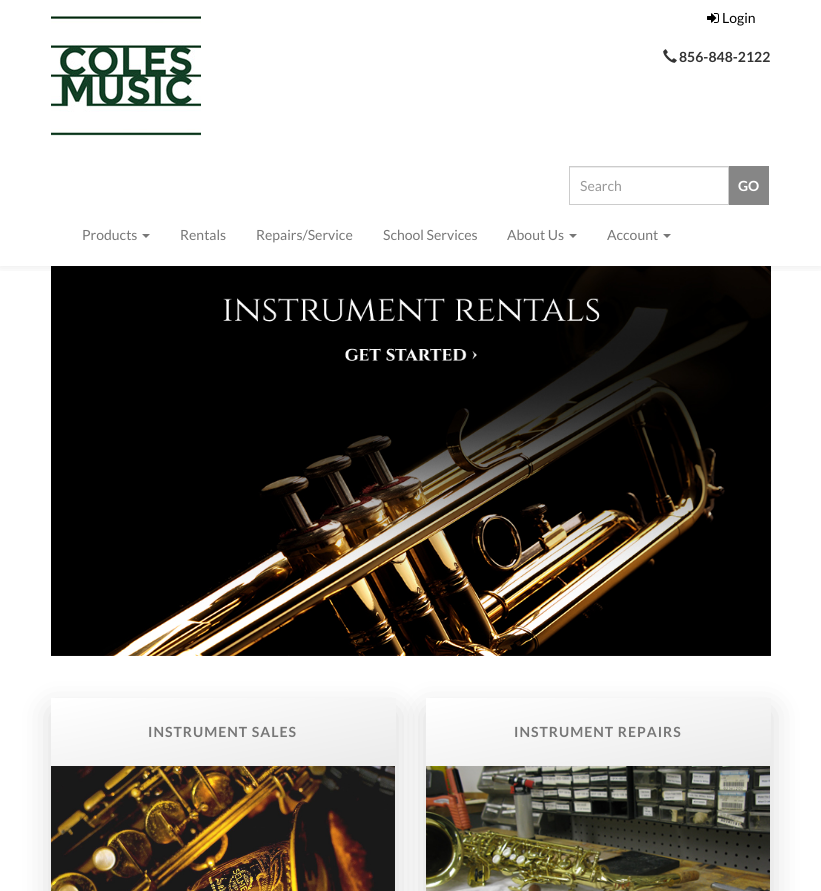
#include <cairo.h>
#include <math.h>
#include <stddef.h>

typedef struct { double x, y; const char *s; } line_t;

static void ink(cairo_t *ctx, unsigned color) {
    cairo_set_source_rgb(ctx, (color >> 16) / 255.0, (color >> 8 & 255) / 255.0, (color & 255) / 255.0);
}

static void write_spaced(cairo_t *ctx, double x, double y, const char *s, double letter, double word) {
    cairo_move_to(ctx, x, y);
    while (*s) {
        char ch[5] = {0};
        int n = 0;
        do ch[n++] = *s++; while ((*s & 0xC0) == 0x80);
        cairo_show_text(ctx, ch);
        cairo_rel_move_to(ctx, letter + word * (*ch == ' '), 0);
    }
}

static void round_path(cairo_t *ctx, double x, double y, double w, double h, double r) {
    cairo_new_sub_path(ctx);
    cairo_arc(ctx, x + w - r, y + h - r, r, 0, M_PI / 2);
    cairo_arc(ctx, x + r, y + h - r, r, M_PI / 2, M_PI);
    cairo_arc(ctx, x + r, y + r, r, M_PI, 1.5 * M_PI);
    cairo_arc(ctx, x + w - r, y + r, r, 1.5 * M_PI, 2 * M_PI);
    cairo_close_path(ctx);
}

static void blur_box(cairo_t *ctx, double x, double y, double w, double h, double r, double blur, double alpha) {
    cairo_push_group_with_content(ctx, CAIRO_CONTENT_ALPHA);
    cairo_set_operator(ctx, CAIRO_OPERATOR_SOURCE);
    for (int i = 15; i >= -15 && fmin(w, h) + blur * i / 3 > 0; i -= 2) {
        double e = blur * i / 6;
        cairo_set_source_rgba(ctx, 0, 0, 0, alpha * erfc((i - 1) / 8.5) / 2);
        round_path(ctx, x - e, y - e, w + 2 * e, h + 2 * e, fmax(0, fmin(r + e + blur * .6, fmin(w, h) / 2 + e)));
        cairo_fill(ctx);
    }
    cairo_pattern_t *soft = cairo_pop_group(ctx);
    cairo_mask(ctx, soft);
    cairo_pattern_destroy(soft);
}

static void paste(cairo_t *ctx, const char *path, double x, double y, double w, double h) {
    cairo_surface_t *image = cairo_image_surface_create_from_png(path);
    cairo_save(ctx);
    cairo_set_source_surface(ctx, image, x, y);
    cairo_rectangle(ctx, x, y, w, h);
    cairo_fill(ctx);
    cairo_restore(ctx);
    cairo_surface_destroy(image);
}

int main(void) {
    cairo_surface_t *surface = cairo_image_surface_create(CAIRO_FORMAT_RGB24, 821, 891);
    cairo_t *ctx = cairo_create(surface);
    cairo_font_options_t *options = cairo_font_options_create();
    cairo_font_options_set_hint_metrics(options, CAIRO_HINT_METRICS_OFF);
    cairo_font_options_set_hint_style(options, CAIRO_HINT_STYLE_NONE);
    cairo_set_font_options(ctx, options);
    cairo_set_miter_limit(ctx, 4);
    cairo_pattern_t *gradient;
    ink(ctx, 0xFFFFFF);
    cairo_paint(ctx);
    cairo_save(ctx);
    cairo_rectangle(ctx, 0, 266, 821, 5);
    cairo_clip(ctx);
    ink(ctx, 0x000000);
    blur_box(ctx, 0, 0, 821, 266, 0, 6, 0.1);
    cairo_restore(ctx);
    paste(ctx, "media/1.png", 51, 16, 150, 120);
    paste(ctx, "media/2.png", 707, 13, 12, 10);
    cairo_select_font_face(ctx, "Lato", CAIRO_FONT_SLANT_NORMAL, CAIRO_FONT_WEIGHT_NORMAL);
    cairo_set_font_size(ctx, 14);
    ink(ctx, 0x000000);
    cairo_move_to(ctx, 722, 23);
    cairo_show_text(ctx, "Login");
    paste(ctx, "media/3.png", 663, 49, 14, 14);
    cairo_select_font_face(ctx, "Lato", CAIRO_FONT_SLANT_NORMAL, CAIRO_FONT_WEIGHT_BOLD);
    ink(ctx, 0x333333);
    cairo_move_to(ctx, 679, 62);
    cairo_show_text(ctx, "856-848-2122");
    ink(ctx, 0xECECEC);
    cairo_rectangle(ctx, 570, 167, 158, 1);
    cairo_fill(ctx);
    cairo_rectangle(ctx, 569.5, 166.5, 159, 38);
    ink(ctx, 0xCCCCCC);
    cairo_set_line_width(ctx, 1);
    cairo_stroke(ctx);
    cairo_select_font_face(ctx, "Lato", CAIRO_FONT_SLANT_NORMAL, CAIRO_FONT_WEIGHT_NORMAL);
    ink(ctx, 0x999999);
    cairo_move_to(ctx, 580, 191);
    cairo_show_text(ctx, "Search");
    ink(ctx, 0x868686);
    cairo_rectangle(ctx, 729, 166, 40, 39);
    cairo_fill(ctx);
    cairo_select_font_face(ctx, "Lato", CAIRO_FONT_SLANT_NORMAL, CAIRO_FONT_WEIGHT_BOLD);
    ink(ctx, 0xFFFFFF);
    cairo_move_to(ctx, 738, 191);
    cairo_show_text(ctx, "GO");
    cairo_select_font_face(ctx, "Lato", CAIRO_FONT_SLANT_NORMAL, CAIRO_FONT_WEIGHT_NORMAL);
    ink(ctx, 0x777777);
    cairo_move_to(ctx, 82, 240);
    cairo_show_text(ctx, "Products");
    cairo_new_path(ctx);
    cairo_move_to(ctx, 142, 234);
    cairo_line_to(ctx, 150, 234);
    cairo_line_to(ctx, 146, 238);
    cairo_close_path(ctx);
    cairo_fill(ctx);
    {
        static const line_t items[] = {
            {180, 240, "Rentals"},
            {256, 240, "Repairs/Service"},
            {383, 240, "School Services"},
            {507, 240, "About Us"},
        };
        for (size_t i = 0; i < sizeof items / sizeof *items; i++) {
            cairo_move_to(ctx, items[i].x, items[i].y);
            cairo_show_text(ctx, items[i].s);
        }
    }
    cairo_new_path(ctx);
    cairo_move_to(ctx, 569, 234);
    cairo_line_to(ctx, 577, 234);
    cairo_line_to(ctx, 573, 238);
    cairo_close_path(ctx);
    cairo_fill(ctx);
    cairo_move_to(ctx, 607, 240);
    cairo_show_text(ctx, "Account");
    cairo_new_path(ctx);
    cairo_move_to(ctx, 663, 234);
    cairo_line_to(ctx, 671, 234);
    cairo_line_to(ctx, 667, 238);
    cairo_close_path(ctx);
    cairo_fill(ctx);
    paste(ctx, "media/4.png", 51, 266, 720, 390);
    ink(ctx, 0x000000);
    blur_box(ctx, 51, 710, 345, 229, 0, 16, 0.15);
    gradient = cairo_pattern_create_linear(211, 667, 236, 797);
    cairo_pattern_add_color_stop_rgba(gradient, 0.02, 1, 1, 1, 1);
    cairo_pattern_add_color_stop_rgba(gradient, 0.98, 0.922, 0.922, 0.922, 1);
    cairo_set_source(ctx, gradient);
    cairo_pattern_destroy(gradient);
    cairo_rectangle(ctx, 51, 698, 345, 68);
    cairo_fill(ctx);
    cairo_select_font_face(ctx, "Lato", CAIRO_FONT_SLANT_NORMAL, CAIRO_FONT_WEIGHT_BOLD);
    ink(ctx, 0x777777);
    write_spaced(ctx, 148, 737, "INSTRUMENT SALES", 1, 0);
    paste(ctx, "media/5.png", 51, 766, 344, 125);
    ink(ctx, 0x000000);
    blur_box(ctx, 426, 710, 345, 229, 0, 16, 0.15);
    gradient = cairo_pattern_create_linear(586, 667, 611, 797);
    cairo_pattern_add_color_stop_rgba(gradient, 0.02, 1, 1, 1, 1);
    cairo_pattern_add_color_stop_rgba(gradient, 0.98, 0.922, 0.922, 0.922, 1);
    cairo_set_source(ctx, gradient);
    cairo_pattern_destroy(gradient);
    cairo_rectangle(ctx, 426, 698, 345, 68);
    cairo_fill(ctx);
    ink(ctx, 0x777777);
    write_spaced(ctx, 514, 737, "INSTRUMENT REPAIRS", 1, 0);
    paste(ctx, "media/6.png", 426, 766, 344, 125);
    cairo_surface_write_to_png(surface, "image.png");
    cairo_font_options_destroy(options);
    cairo_destroy(ctx);
    cairo_surface_destroy(surface);
    return 0;
}
